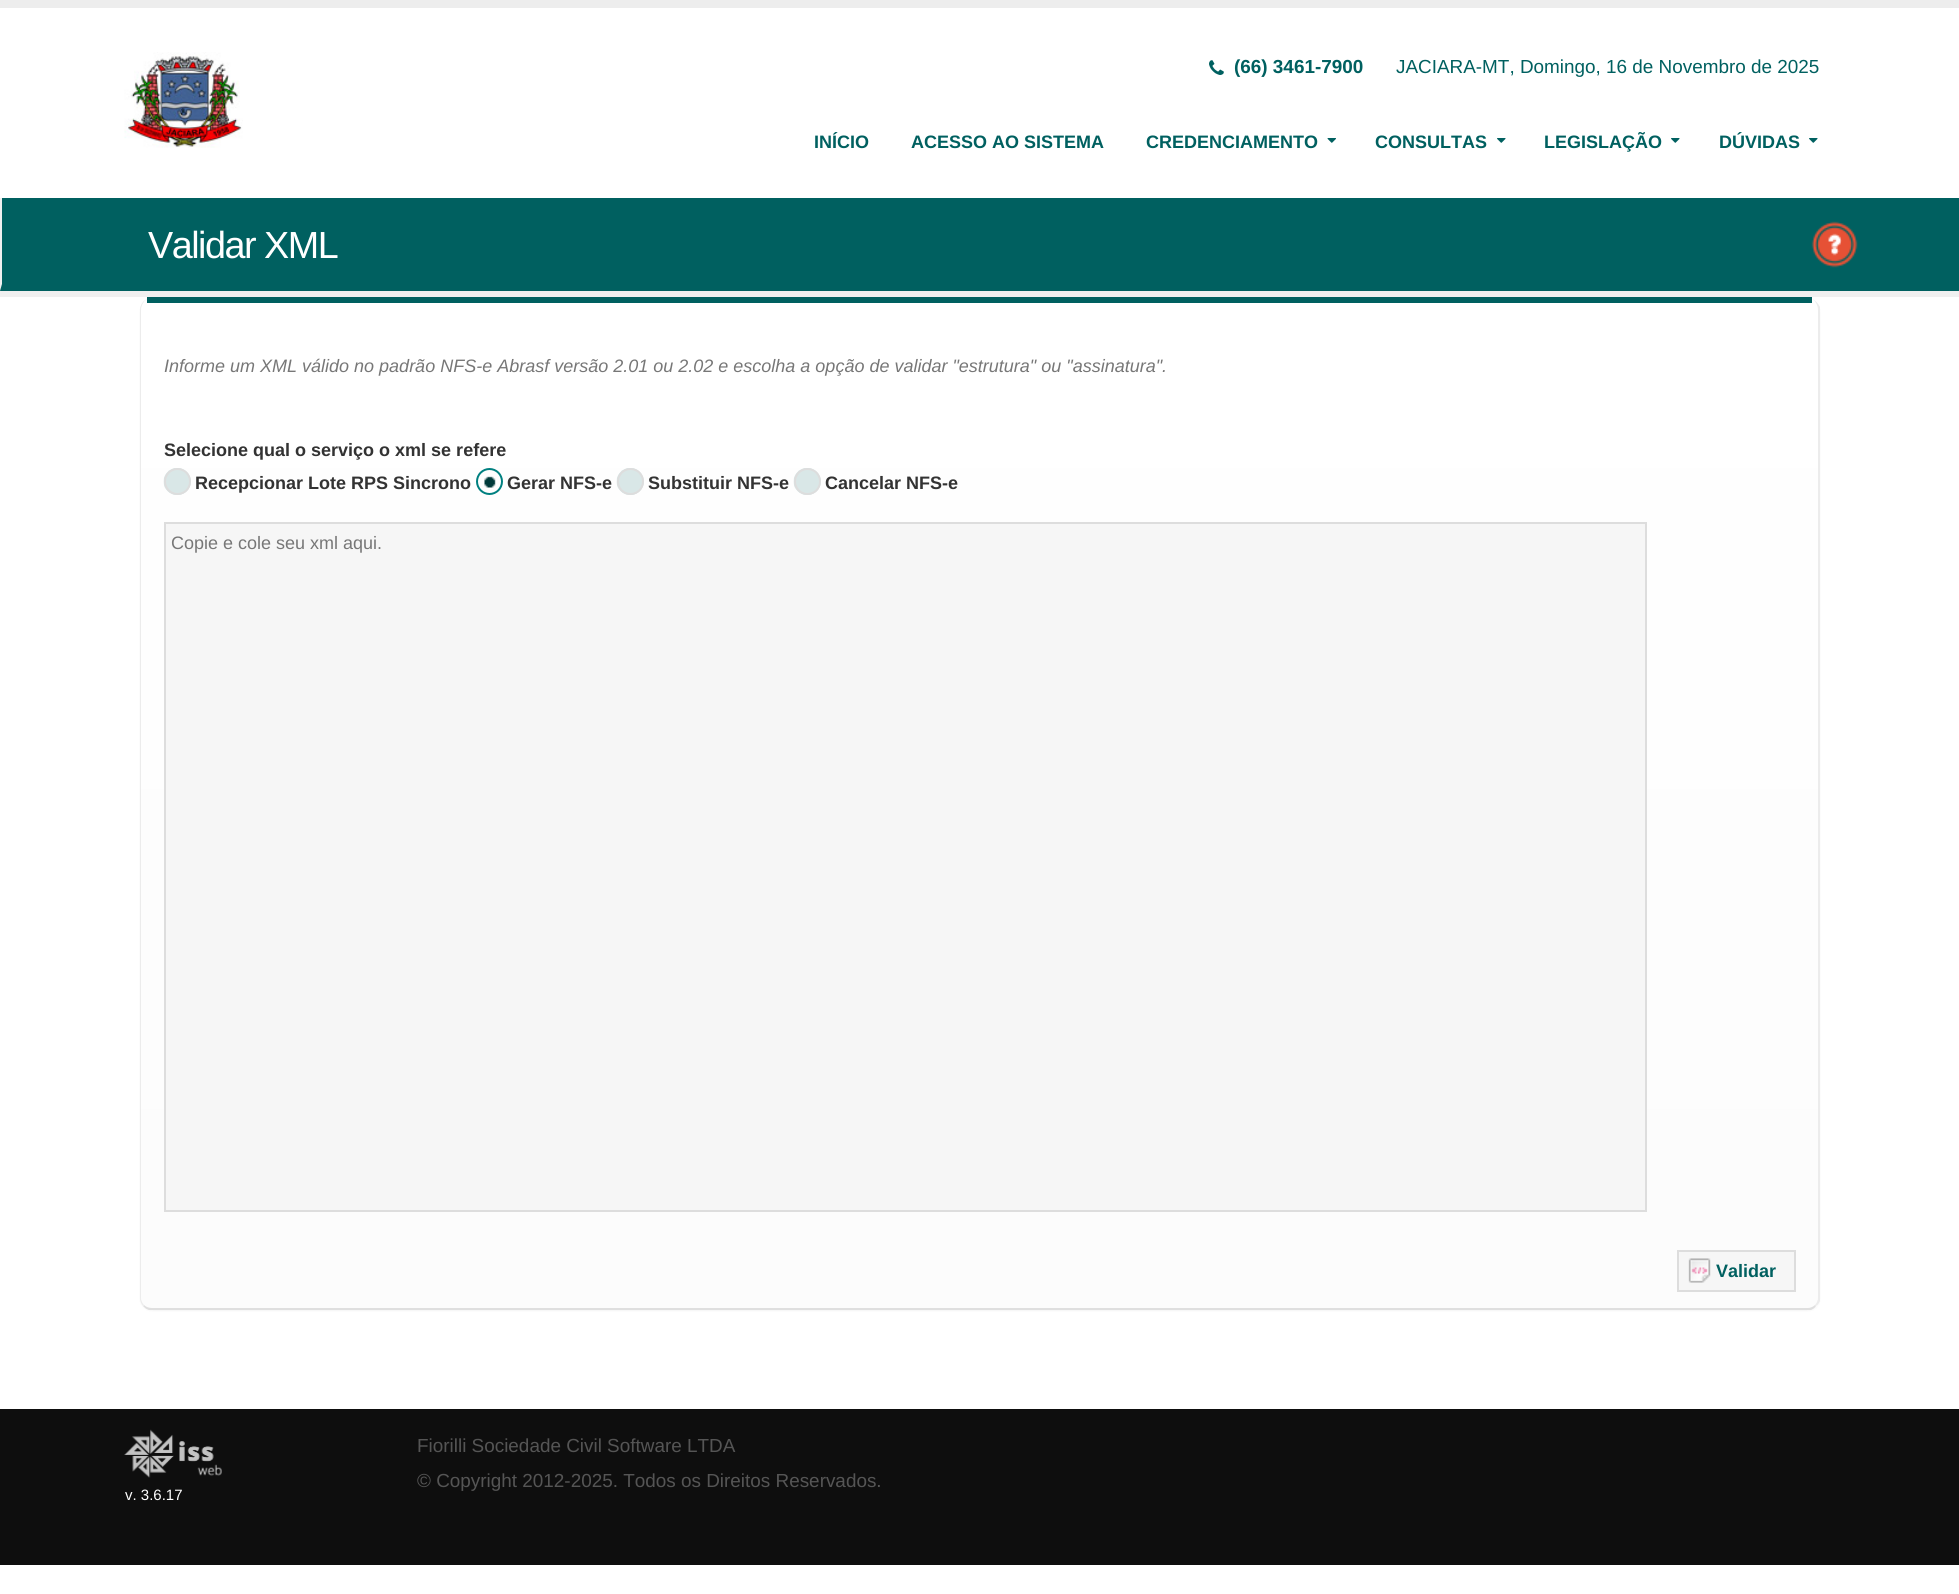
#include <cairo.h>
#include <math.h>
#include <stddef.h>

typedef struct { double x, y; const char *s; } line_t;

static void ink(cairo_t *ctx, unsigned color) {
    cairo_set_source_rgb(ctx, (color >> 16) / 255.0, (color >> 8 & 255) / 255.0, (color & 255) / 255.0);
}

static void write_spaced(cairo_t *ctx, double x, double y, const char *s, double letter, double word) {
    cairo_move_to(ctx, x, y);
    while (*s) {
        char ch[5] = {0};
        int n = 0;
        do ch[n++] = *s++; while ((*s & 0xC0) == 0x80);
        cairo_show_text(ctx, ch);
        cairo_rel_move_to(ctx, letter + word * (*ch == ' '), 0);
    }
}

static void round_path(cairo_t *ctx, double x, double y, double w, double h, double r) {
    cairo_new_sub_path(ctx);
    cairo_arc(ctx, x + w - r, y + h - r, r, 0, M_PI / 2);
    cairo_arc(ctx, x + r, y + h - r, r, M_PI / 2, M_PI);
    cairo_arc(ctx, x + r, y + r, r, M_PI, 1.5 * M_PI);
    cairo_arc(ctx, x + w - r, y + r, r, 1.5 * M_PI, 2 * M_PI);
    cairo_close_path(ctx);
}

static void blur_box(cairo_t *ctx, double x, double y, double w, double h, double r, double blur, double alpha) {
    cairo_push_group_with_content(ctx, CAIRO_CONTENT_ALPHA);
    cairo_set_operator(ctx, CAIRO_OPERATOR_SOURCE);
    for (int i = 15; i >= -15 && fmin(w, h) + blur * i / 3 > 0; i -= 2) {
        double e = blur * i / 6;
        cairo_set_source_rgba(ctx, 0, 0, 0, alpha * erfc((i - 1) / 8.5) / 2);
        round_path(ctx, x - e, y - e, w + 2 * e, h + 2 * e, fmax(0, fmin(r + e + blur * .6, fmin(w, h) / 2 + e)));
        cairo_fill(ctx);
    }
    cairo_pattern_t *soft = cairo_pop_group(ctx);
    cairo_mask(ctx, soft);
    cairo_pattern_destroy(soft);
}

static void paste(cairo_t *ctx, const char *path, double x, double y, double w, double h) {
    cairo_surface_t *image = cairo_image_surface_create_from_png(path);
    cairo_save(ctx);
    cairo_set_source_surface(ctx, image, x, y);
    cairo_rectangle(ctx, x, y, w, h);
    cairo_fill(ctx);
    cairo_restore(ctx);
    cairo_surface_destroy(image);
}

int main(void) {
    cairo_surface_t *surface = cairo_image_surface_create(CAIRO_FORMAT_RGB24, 1959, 1594);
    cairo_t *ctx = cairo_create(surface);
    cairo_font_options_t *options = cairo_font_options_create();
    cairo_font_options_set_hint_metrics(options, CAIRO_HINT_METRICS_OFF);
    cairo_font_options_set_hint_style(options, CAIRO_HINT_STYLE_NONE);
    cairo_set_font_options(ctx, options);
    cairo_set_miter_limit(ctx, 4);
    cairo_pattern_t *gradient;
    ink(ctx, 0xFFFFFF);
    cairo_paint(ctx);
    ink(ctx, 0xEDEDED);
    cairo_rectangle(ctx, 0, 0, 1959, 8);
    cairo_fill(ctx);
    paste(ctx, "media/1.png", 124, 52, 119, 96);
    paste(ctx, "media/2.png", 1209, 60, 15, 15);
    cairo_select_font_face(ctx, "Liberation Sans", CAIRO_FONT_SLANT_NORMAL, CAIRO_FONT_WEIGHT_BOLD);
    cairo_set_font_size(ctx, 18.9);
    ink(ctx, 0x006060);
    cairo_move_to(ctx, 1234, 73);
    cairo_show_text(ctx, "(66) 3461-7900");
    cairo_select_font_face(ctx, "Liberation Sans", CAIRO_FONT_SLANT_NORMAL, CAIRO_FONT_WEIGHT_NORMAL);
    cairo_move_to(ctx, 1396, 73);
    cairo_show_text(ctx, "JACIARA-MT, Domingo, 16 de Novembro de 2025");
    cairo_select_font_face(ctx, "Liberation Sans", CAIRO_FONT_SLANT_NORMAL, CAIRO_FONT_WEIGHT_BOLD);
    cairo_set_font_size(ctx, 18);
    {
        static const line_t items[] = {
            {814, 148, "INÍCIO"},
            {911, 148, "ACESSO AO SISTEMA"},
            {1146, 148, "CREDENCIAMENTO"},
        };
        for (size_t i = 0; i < sizeof items / sizeof *items; i++) {
            cairo_move_to(ctx, items[i].x, items[i].y);
            cairo_show_text(ctx, items[i].s);
        }
    }
    paste(ctx, "media/3.png", 1327, 138, 9, 5);
    cairo_move_to(ctx, 1375, 148);
    cairo_show_text(ctx, "CONSULTAS");
    paste(ctx, "media/4.png", 1497, 138, 9, 5);
    cairo_move_to(ctx, 1544, 148);
    cairo_show_text(ctx, "LEGISLAÇÃO");
    paste(ctx, "media/4.png", 1671, 138, 9, 5);
    cairo_move_to(ctx, 1719, 148);
    cairo_show_text(ctx, "DÚVIDAS");
    paste(ctx, "media/4.png", 1809, 138, 9, 5);
    ink(ctx, 0xF0F0F0);
    cairo_new_path(ctx);
    cairo_move_to(ctx, 0, 291);
    cairo_line_to(ctx, 0, 297);
    cairo_line_to(ctx, 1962, 297);
    cairo_line_to(ctx, 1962, 201);
    cairo_line_to(ctx, 1959, 201);
    cairo_line_to(ctx, 1959, 291);
    cairo_close_path(ctx);
    cairo_fill(ctx);
    ink(ctx, 0x006060);
    cairo_rectangle(ctx, 0, 198, 1959, 93);
    cairo_fill(ctx);
    ink(ctx, 0xF0F0F0);
    cairo_new_path(ctx);
    cairo_move_to(ctx, 0, 291);
    cairo_line_to(ctx, 0, 198);
    cairo_line_to(ctx, 2, 198);
    cairo_line_to(ctx, 2, 284);
    cairo_close_path(ctx);
    cairo_fill(ctx);
    cairo_select_font_face(ctx, "Liberation Sans", CAIRO_FONT_SLANT_NORMAL, CAIRO_FONT_WEIGHT_NORMAL);
    cairo_set_font_size(ctx, 37.75);
    ink(ctx, 0xFFFFFF);
    write_spaced(ctx, 148, 258, "Validar XML", -1.5, 0);
    paste(ctx, "media/5.png", 1811, 221, 47, 47);
    ink(ctx, 0x000000);
    blur_box(ctx, 140, 300, 1680, 1011, 12, 1, 0.04);
    cairo_save(ctx);
    round_path(ctx, 140, 299, 1680, 1011, 12);
    cairo_clip(ctx);
    gradient = cairo_pattern_create_linear(980, 298, 980, 1308);
    cairo_pattern_add_color_stop_rgba(gradient, 0.01, 1, 1, 1, 1);
    cairo_pattern_add_color_stop_rgba(gradient, 0.98, 0.988, 0.988, 0.988, 1);
    cairo_set_source(ctx, gradient);
    cairo_pattern_destroy(gradient);
    cairo_new_path(ctx);
    cairo_move_to(ctx, 152, 299);
    cairo_line_to(ctx, 1808, 299);
    cairo_curve_to(ctx, 1814.5, 299, 1820, 304.5, 1820, 311);
    cairo_line_to(ctx, 1820, 1308);
    cairo_line_to(ctx, 140, 1308);
    cairo_line_to(ctx, 140, 311);
    cairo_curve_to(ctx, 140, 304.5, 145.5, 299, 152, 299);
    cairo_close_path(ctx);
    cairo_fill(ctx);
    cairo_restore(ctx);
    ink(ctx, 0xECECEC);
    cairo_new_path(ctx);
    cairo_move_to(ctx, 1815, 1305);
    cairo_curve_to(ctx, 1817, 1303, 1818, 1300, 1818, 1298);
    cairo_line_to(ctx, 1818, 310);
    cairo_curve_to(ctx, 1818, 305, 1815, 300, 1811, 298);
    cairo_curve_to(ctx, 1815, 300, 1818, 303, 1820, 307);
    cairo_line_to(ctx, 1820, 1301);
    cairo_curve_to(ctx, 1819, 1303, 1818, 1305, 1816, 1306);
    cairo_close_path(ctx);
    cairo_fill(ctx);
    ink(ctx, 0xDFDFDF);
    cairo_new_path(ctx);
    cairo_move_to(ctx, 144, 1305);
    cairo_curve_to(ctx, 146, 1307, 149, 1308, 152, 1308);
    cairo_line_to(ctx, 1808, 1308);
    cairo_curve_to(ctx, 1810, 1308, 1813, 1307, 1815, 1305);
    cairo_line_to(ctx, 1816, 1306);
    cairo_curve_to(ctx, 1815, 1308, 1813, 1309, 1811, 1310);
    cairo_line_to(ctx, 149, 1310);
    cairo_curve_to(ctx, 146, 1309, 145, 1308, 143, 1306);
    cairo_close_path(ctx);
    cairo_fill(ctx);
    ink(ctx, 0xECECEC);
    cairo_new_path(ctx);
    cairo_move_to(ctx, 149, 298);
    cairo_curve_to(ctx, 144, 300, 141, 305, 141, 310);
    cairo_line_to(ctx, 141, 1298);
    cairo_curve_to(ctx, 141, 1300, 142, 1303, 144, 1305);
    cairo_line_to(ctx, 143, 1306);
    cairo_curve_to(ctx, 141, 1304, 140, 1301, 140, 1298);
    cairo_line_to(ctx, 140, 310);
    cairo_curve_to(ctx, 140, 305, 143, 300, 149, 298);
    cairo_close_path(ctx);
    cairo_fill(ctx);
    ink(ctx, 0x006060);
    cairo_rectangle(ctx, 147, 297, 1665, 6);
    cairo_fill(ctx);
    cairo_select_font_face(ctx, "Liberation Sans", CAIRO_FONT_SLANT_ITALIC, CAIRO_FONT_WEIGHT_NORMAL);
    cairo_set_font_size(ctx, 18);
    ink(ctx, 0x777777);
    cairo_move_to(ctx, 164, 372);
    cairo_show_text(ctx, "Informe um XML válido no padrão NFS-e Abrasf versão 2.01 ou 2.02 e escolha a opção de validar \"estrutura\" ou \"assinatura\".");
    cairo_select_font_face(ctx, "Liberation Sans", CAIRO_FONT_SLANT_NORMAL, CAIRO_FONT_WEIGHT_BOLD);
    ink(ctx, 0x333333);
    cairo_move_to(ctx, 164, 456);
    cairo_show_text(ctx, "Selecione qual o serviço o xml se refere");
    ink(ctx, 0xD9E7E7);
    cairo_new_path(ctx);
    cairo_arc(ctx, 177.5, 481.5, 13.5, 0, 2 * M_PI);
    cairo_fill(ctx);
    paste(ctx, "media/6.png", 163, 468, 21, 27);
    cairo_arc(ctx, 177.5, 481.5, 12.5, 0, 2 * M_PI);
    ink(ctx, 0xDDDDDD);
    cairo_stroke(ctx);
    ink(ctx, 0x333333);
    cairo_move_to(ctx, 195, 489);
    cairo_show_text(ctx, "Recepcionar Lote RPS Sincrono");
    cairo_new_path(ctx);
    cairo_arc(ctx, 489.5, 481.5, 12.5, 0, 2 * M_PI);
    ink(ctx, 0x008080);
    cairo_stroke(ctx);
    paste(ctx, "media/7.png", 484, 476, 12, 12);
    ink(ctx, 0x333333);
    cairo_move_to(ctx, 507, 489);
    cairo_show_text(ctx, "Gerar NFS-e");
    ink(ctx, 0xD9E7E7);
    cairo_new_path(ctx);
    cairo_arc(ctx, 630.5, 481.5, 13.5, 0, 2 * M_PI);
    cairo_fill(ctx);
    paste(ctx, "media/6.png", 616, 468, 21, 27);
    cairo_arc(ctx, 630.5, 481.5, 12.5, 0, 2 * M_PI);
    ink(ctx, 0xDDDDDD);
    cairo_stroke(ctx);
    ink(ctx, 0x333333);
    cairo_move_to(ctx, 648, 489);
    cairo_show_text(ctx, "Substituir NFS-e");
    ink(ctx, 0xD9E7E7);
    cairo_new_path(ctx);
    cairo_arc(ctx, 807.5, 481.5, 13.5, 0, 2 * M_PI);
    cairo_fill(ctx);
    paste(ctx, "media/6.png", 793, 468, 21, 27);
    cairo_arc(ctx, 807.5, 481.5, 12.5, 0, 2 * M_PI);
    ink(ctx, 0xDDDDDD);
    cairo_stroke(ctx);
    ink(ctx, 0x333333);
    cairo_move_to(ctx, 825, 489);
    cairo_show_text(ctx, "Cancelar NFS-e");
    ink(ctx, 0xF6F6F6);
    cairo_rectangle(ctx, 165, 523, 1481, 688);
    cairo_fill_preserve(ctx);
    ink(ctx, 0xDDDDDD);
    cairo_stroke(ctx);
    cairo_select_font_face(ctx, "Liberation Sans", CAIRO_FONT_SLANT_NORMAL, CAIRO_FONT_WEIGHT_NORMAL);
    ink(ctx, 0x777777);
    cairo_move_to(ctx, 171, 549);
    cairo_show_text(ctx, "Copie e cole seu xml aqui.");
    ink(ctx, 0xF6F6F6);
    cairo_rectangle(ctx, 1678, 1251, 117, 40);
    cairo_fill_preserve(ctx);
    ink(ctx, 0xDDDDDD);
    cairo_stroke(ctx);
    paste(ctx, "media/8.png", 1688, 1258, 23, 25);
    cairo_select_font_face(ctx, "Liberation Sans", CAIRO_FONT_SLANT_NORMAL, CAIRO_FONT_WEIGHT_BOLD);
    ink(ctx, 0x006060);
    cairo_move_to(ctx, 1716, 1277);
    cairo_show_text(ctx, "Validar");
    ink(ctx, 0x0E0E0E);
    cairo_rectangle(ctx, 0, 1409, 1959, 156);
    cairo_fill(ctx);
    cairo_select_font_face(ctx, "Liberation Sans", CAIRO_FONT_SLANT_NORMAL, CAIRO_FONT_WEIGHT_NORMAL);
    cairo_set_font_size(ctx, 18.9);
    ink(ctx, 0x555555);
    cairo_move_to(ctx, 417, 1452);
    cairo_show_text(ctx, "Fiorilli Sociedade Civil Software LTDA");
    cairo_move_to(ctx, 417, 1487);
    cairo_show_text(ctx, "© Copyright 2012-2025. Todos os Direitos Reservados.");
    paste(ctx, "media/9.png", 124, 1429, 98, 49);
    cairo_set_font_size(ctx, 15);
    ink(ctx, 0xFFFFFF);
    cairo_move_to(ctx, 125, 1500);
    cairo_show_text(ctx, "v. 3.6.17");
    cairo_surface_write_to_png(surface, "image.png");
    cairo_font_options_destroy(options);
    cairo_destroy(ctx);
    cairo_surface_destroy(surface);
    return 0;
}
